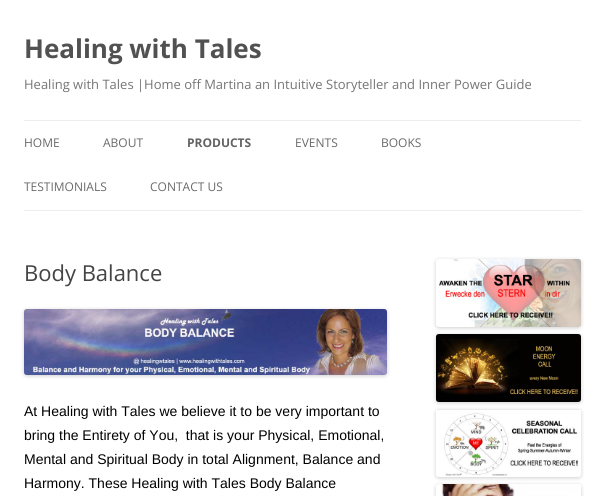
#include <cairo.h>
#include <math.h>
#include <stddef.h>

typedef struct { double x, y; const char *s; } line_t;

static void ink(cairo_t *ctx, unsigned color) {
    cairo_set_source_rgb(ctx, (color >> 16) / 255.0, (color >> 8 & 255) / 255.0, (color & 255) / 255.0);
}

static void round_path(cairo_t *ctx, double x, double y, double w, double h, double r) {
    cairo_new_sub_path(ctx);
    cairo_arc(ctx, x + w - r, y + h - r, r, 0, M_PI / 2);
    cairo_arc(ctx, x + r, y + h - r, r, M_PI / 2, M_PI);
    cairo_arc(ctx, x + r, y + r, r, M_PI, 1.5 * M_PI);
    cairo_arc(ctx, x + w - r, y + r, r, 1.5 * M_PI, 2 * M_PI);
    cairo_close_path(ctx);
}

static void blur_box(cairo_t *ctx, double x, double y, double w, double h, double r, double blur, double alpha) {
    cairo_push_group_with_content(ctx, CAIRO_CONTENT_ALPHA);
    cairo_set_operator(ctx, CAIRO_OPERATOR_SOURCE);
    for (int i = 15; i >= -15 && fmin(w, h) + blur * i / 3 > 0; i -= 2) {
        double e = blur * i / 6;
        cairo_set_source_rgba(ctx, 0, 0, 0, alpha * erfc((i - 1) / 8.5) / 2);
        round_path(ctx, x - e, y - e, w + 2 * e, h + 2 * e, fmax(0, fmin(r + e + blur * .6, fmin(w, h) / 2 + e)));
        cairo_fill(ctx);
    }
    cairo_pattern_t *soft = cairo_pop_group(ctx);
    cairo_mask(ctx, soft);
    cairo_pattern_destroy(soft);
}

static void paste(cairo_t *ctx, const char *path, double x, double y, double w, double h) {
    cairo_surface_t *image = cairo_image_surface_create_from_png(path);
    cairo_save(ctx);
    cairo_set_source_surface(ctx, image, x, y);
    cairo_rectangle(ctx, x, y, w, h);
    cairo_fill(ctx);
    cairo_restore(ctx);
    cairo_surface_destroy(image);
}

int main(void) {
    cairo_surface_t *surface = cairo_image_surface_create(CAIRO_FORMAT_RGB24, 605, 496);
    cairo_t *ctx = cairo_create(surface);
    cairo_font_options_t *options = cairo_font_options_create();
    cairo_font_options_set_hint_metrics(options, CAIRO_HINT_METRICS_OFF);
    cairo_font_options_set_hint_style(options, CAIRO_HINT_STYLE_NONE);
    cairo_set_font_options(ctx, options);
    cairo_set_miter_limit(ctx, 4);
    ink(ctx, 0xFFFFFF);
    cairo_paint(ctx);
    cairo_select_font_face(ctx, "Open Sans", CAIRO_FONT_SLANT_NORMAL, CAIRO_FONT_WEIGHT_BOLD);
    cairo_set_font_size(ctx, 26);
    ink(ctx, 0x515151);
    cairo_move_to(ctx, 24, 58);
    cairo_show_text(ctx, "Healing with Tales");
    cairo_select_font_face(ctx, "Open Sans", CAIRO_FONT_SLANT_NORMAL, CAIRO_FONT_WEIGHT_NORMAL);
    cairo_set_font_size(ctx, 13);
    ink(ctx, 0x757575);
    cairo_move_to(ctx, 24, 89);
    cairo_show_text(ctx, "Healing with Tales |Home off Martina an Intuitive Storyteller and Inner Power Guide");
    ink(ctx, 0xEDEDED);
    cairo_rectangle(ctx, 24, 120, 557, 1);
    cairo_fill(ctx);
    cairo_rectangle(ctx, 24, 210, 557, 1);
    cairo_fill(ctx);
    cairo_set_font_size(ctx, 12);
    ink(ctx, 0x6A6A6A);
    cairo_move_to(ctx, 24, 147);
    cairo_show_text(ctx, "HOME");
    cairo_move_to(ctx, 103, 147);
    cairo_show_text(ctx, "ABOUT");
    cairo_select_font_face(ctx, "Open Sans", CAIRO_FONT_SLANT_NORMAL, CAIRO_FONT_WEIGHT_BOLD);
    ink(ctx, 0x636363);
    cairo_move_to(ctx, 187, 147);
    cairo_show_text(ctx, "PRODUCTS");
    cairo_select_font_face(ctx, "Open Sans", CAIRO_FONT_SLANT_NORMAL, CAIRO_FONT_WEIGHT_NORMAL);
    ink(ctx, 0x6A6A6A);
    {
        static const line_t items[] = {
            {295, 147, "EVENTS"},
            {381, 147, "BOOKS"},
            {24, 191, "TESTIMONIALS"},
            {150, 191, "CONTACT US"},
        };
        for (size_t i = 0; i < sizeof items / sizeof *items; i++) {
            cairo_move_to(ctx, items[i].x, items[i].y);
            cairo_show_text(ctx, items[i].s);
        }
    }
    cairo_set_font_size(ctx, 22);
    ink(ctx, 0x444444);
    cairo_move_to(ctx, 24, 281);
    cairo_show_text(ctx, "Body Balance");
    ink(ctx, 0x000000);
    blur_box(ctx, 24, 310, 363, 66, 3, 2, 0.2);
    paste(ctx, "media/1.png", 24, 309, 363, 66);
    cairo_select_font_face(ctx, "Liberation Sans", CAIRO_FONT_SLANT_NORMAL, CAIRO_FONT_WEIGHT_NORMAL);
    cairo_set_font_size(ctx, 14);
    ink(ctx, 0x000000);
    {
        static const line_t items[] = {
            {24, 416, "At Healing with Tales we believe it to be very important to"},
            {24, 440, "bring the Entirety of You,  that is your Physical, Emotional,"},
            {24, 464, "Mental and Spiritual Body in total Alignment, Balance and"},
            {24, 488, "Harmony. These Healing with Tales Body Balance"},
        };
        for (size_t i = 0; i < sizeof items / sizeof *items; i++) {
            cairo_move_to(ctx, items[i].x, items[i].y);
            cairo_show_text(ctx, items[i].s);
        }
    }
    ink(ctx, 0x000000);
    blur_box(ctx, 436, 260, 145, 68, 3, 2, 0.2);
    paste(ctx, "media/2.png", 436, 259, 145, 68);
    blur_box(ctx, 436, 335, 145, 68, 3, 2, 0.2);
    paste(ctx, "media/3.png", 436, 334, 145, 68);
    blur_box(ctx, 436, 410, 145, 68, 3, 2, 0.2);
    paste(ctx, "media/4.png", 436, 410, 145, 67);
    blur_box(ctx, 436, 485, 145, 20, 3, 2, 0.2);
    paste(ctx, "media/5.png", 436, 484, 145, 12);
    cairo_surface_write_to_png(surface, "image.png");
    cairo_font_options_destroy(options);
    cairo_destroy(ctx);
    cairo_surface_destroy(surface);
    return 0;
}
